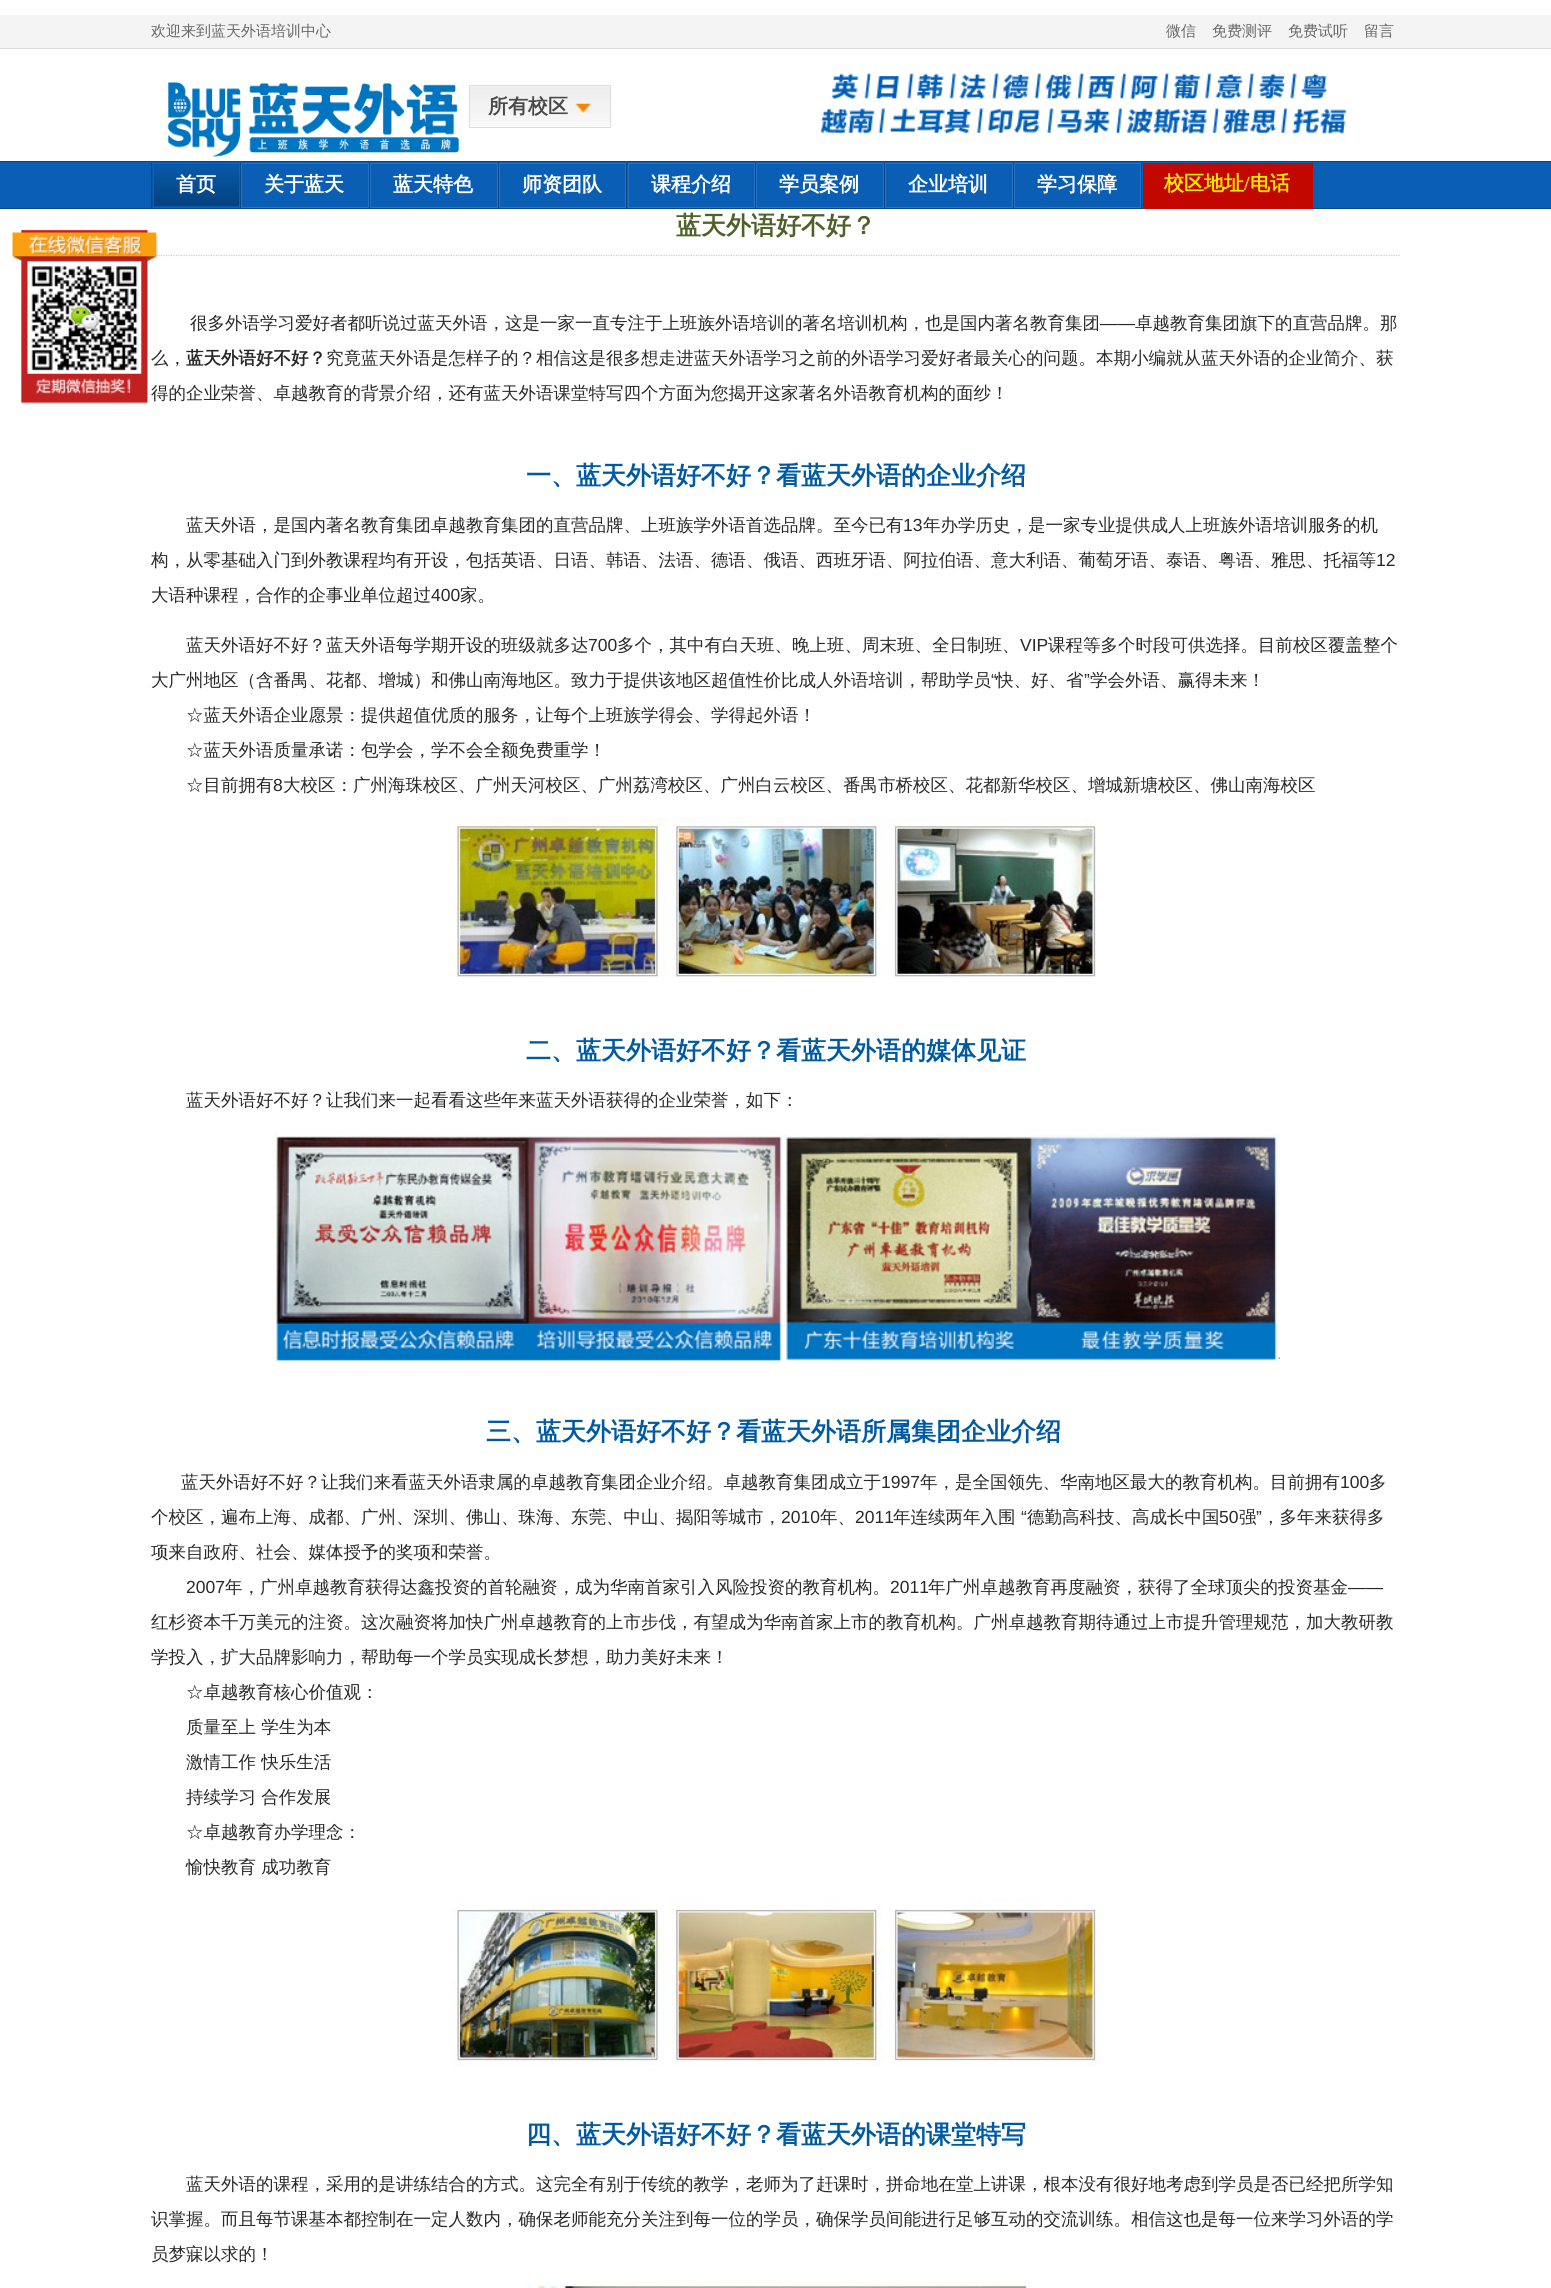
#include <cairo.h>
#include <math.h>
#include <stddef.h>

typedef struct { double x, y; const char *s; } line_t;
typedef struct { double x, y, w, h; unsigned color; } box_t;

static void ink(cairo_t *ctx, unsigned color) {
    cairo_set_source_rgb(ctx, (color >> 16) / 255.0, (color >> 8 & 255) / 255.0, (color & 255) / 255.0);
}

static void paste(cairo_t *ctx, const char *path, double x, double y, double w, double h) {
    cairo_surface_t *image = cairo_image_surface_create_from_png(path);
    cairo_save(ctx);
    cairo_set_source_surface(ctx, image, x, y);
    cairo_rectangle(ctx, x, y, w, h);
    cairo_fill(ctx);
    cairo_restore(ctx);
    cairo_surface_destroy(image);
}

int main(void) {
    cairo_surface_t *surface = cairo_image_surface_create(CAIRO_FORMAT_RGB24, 1551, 2288);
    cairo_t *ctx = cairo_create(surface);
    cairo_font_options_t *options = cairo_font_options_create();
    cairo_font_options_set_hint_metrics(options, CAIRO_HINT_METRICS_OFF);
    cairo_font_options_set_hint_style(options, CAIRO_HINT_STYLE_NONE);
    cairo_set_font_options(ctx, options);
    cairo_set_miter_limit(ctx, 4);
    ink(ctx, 0xFFFFFF);
    cairo_paint(ctx);
    ink(ctx, 0xF4F4F4);
    cairo_rectangle(ctx, 0, 15, 1551, 33);
    cairo_fill(ctx);
    ink(ctx, 0xDDDDDD);
    cairo_rectangle(ctx, 0, 48, 1551, 1);
    cairo_fill(ctx);
    cairo_select_font_face(ctx, "WenQuanYi Zen Hei Medium", CAIRO_FONT_SLANT_NORMAL, CAIRO_FONT_WEIGHT_NORMAL);
    cairo_set_font_size(ctx, 15);
    ink(ctx, 0x676767);
    {
        static const line_t items[] = {
            {151, 36, "欢迎来到蓝天外语培训中心"},
            {1166, 36, "微信"},
            {1212, 36, "免费测评"},
            {1288, 36, "免费试听"},
            {1364, 36, "留言"},
        };
        for (size_t i = 0; i < sizeof items / sizeof *items; i++) {
            cairo_move_to(ctx, items[i].x, items[i].y);
            cairo_show_text(ctx, items[i].s);
        }
    }
    paste(ctx, "media/1.png", 166, 82, 294, 75);
    paste(ctx, "media/2.png", 468, 86, 144, 40);
    cairo_rectangle(ctx, 469.5, 85.5, 141, 42);
    ink(ctx, 0xDDDDDD);
    cairo_set_line_width(ctx, 1);
    cairo_stroke(ctx);
    paste(ctx, "media/3.png", 575, 103, 17, 10);
    cairo_select_font_face(ctx, "WenQuanYi Zen Hei", CAIRO_FONT_SLANT_NORMAL, CAIRO_FONT_WEIGHT_BOLD);
    cairo_set_font_size(ctx, 20);
    ink(ctx, 0x484848);
    cairo_move_to(ctx, 488, 113);
    cairo_show_text(ctx, "所有校区");
    paste(ctx, "media/4.png", 820, 73, 527, 62);
    {
        static const box_t items[] = {
            {0, 162, 1551, 46, 0x0A5FB5},
            {0, 161, 1551, 1, 0x074583},
            {0, 208, 1551, 1, 0x074583},
            {151, 163, 1, 46, 0x074583},
            {240, 163, 1, 45, 0x074583},
        };
        for (size_t i = 0; i < sizeof items / sizeof *items; i++) {
            ink(ctx, items[i].color);
            cairo_rectangle(ctx, items[i].x, items[i].y, items[i].w, items[i].h);
            cairo_fill(ctx);
        }
    }
    paste(ctx, "media/5.png", 152, 164, 87, 43);
    cairo_rectangle(ctx, 153.5, 163.5, 86, 44);
    ink(ctx, 0x1A5EA3);
    cairo_stroke(ctx);
    ink(ctx, 0xFFFFFF);
    cairo_move_to(ctx, 176, 191);
    cairo_show_text(ctx, "首页");
    ink(ctx, 0x074583);
    cairo_rectangle(ctx, 369, 163, 1, 45);
    cairo_fill(ctx);
    cairo_rectangle(ctx, 241.5, 163.5, 127, 44);
    ink(ctx, 0x2573C2);
    cairo_stroke(ctx);
    ink(ctx, 0xFFFFFF);
    cairo_move_to(ctx, 264, 191);
    cairo_show_text(ctx, "关于蓝天");
    ink(ctx, 0x074583);
    cairo_rectangle(ctx, 498, 163, 1, 45);
    cairo_fill(ctx);
    cairo_rectangle(ctx, 370.5, 163.5, 127, 44);
    ink(ctx, 0x2573C2);
    cairo_stroke(ctx);
    ink(ctx, 0xFFFFFF);
    cairo_move_to(ctx, 393, 191);
    cairo_show_text(ctx, "蓝天特色");
    ink(ctx, 0x074583);
    cairo_rectangle(ctx, 626, 163, 1, 45);
    cairo_fill(ctx);
    cairo_rectangle(ctx, 499.5, 163.5, 126, 44);
    ink(ctx, 0x2573C2);
    cairo_stroke(ctx);
    ink(ctx, 0xFFFFFF);
    cairo_move_to(ctx, 522, 191);
    cairo_show_text(ctx, "师资团队");
    ink(ctx, 0x074583);
    cairo_rectangle(ctx, 755, 163, 1, 45);
    cairo_fill(ctx);
    cairo_rectangle(ctx, 628.5, 163.5, 126, 44);
    ink(ctx, 0x2573C2);
    cairo_stroke(ctx);
    ink(ctx, 0xFFFFFF);
    cairo_move_to(ctx, 651, 191);
    cairo_show_text(ctx, "课程介绍");
    ink(ctx, 0x074583);
    cairo_rectangle(ctx, 884, 163, 1, 45);
    cairo_fill(ctx);
    cairo_rectangle(ctx, 756.5, 163.5, 127, 44);
    ink(ctx, 0x2573C2);
    cairo_stroke(ctx);
    ink(ctx, 0xFFFFFF);
    cairo_move_to(ctx, 779, 191);
    cairo_show_text(ctx, "学员案例");
    ink(ctx, 0x074583);
    cairo_rectangle(ctx, 1013, 163, 1, 45);
    cairo_fill(ctx);
    cairo_rectangle(ctx, 885.5, 163.5, 127, 44);
    ink(ctx, 0x2573C2);
    cairo_stroke(ctx);
    ink(ctx, 0xFFFFFF);
    cairo_move_to(ctx, 908, 191);
    cairo_show_text(ctx, "企业培训");
    ink(ctx, 0x074583);
    cairo_rectangle(ctx, 1141, 163, 1, 45);
    cairo_fill(ctx);
    cairo_rectangle(ctx, 1014.5, 163.5, 126, 44);
    ink(ctx, 0x2573C2);
    cairo_stroke(ctx);
    ink(ctx, 0xFFFFFF);
    cairo_move_to(ctx, 1037, 191);
    cairo_show_text(ctx, "学习保障");
    ink(ctx, 0xC20700);
    cairo_rectangle(ctx, 1143, 163, 170, 46);
    cairo_fill(ctx);
    ink(ctx, 0xFFEA00);
    cairo_move_to(ctx, 1164, 190);
    cairo_show_text(ctx, "校区地址");
    cairo_select_font_face(ctx, "Liberation Serif", CAIRO_FONT_SLANT_NORMAL, CAIRO_FONT_WEIGHT_BOLD);
    cairo_move_to(ctx, 1244, 190);
    cairo_show_text(ctx, "/");
    cairo_select_font_face(ctx, "WenQuanYi Zen Hei", CAIRO_FONT_SLANT_NORMAL, CAIRO_FONT_WEIGHT_BOLD);
    cairo_move_to(ctx, 1250, 190);
    cairo_show_text(ctx, "电话");
    cairo_new_path(ctx);
    cairo_move_to(ctx, 151, 255.5);
    cairo_line_to(ctx, 1401, 255.5);
    ink(ctx, 0xCCCCCC);
    cairo_set_line_width(ctx, 1.2);
    cairo_set_dash(ctx, (double[]){1.25, 1.25}, 2, 0);
    cairo_stroke(ctx);
    cairo_select_font_face(ctx, "WenQuanYi Zen Hei Medium", CAIRO_FONT_SLANT_NORMAL, CAIRO_FONT_WEIGHT_NORMAL);
    cairo_set_font_size(ctx, 17.5);
    ink(ctx, 0x282828);
    cairo_move_to(ctx, 151, 364);
    cairo_show_text(ctx, "么，");
    cairo_move_to(ctx, 151, 399);
    cairo_show_text(ctx, "得的企业荣誉、卓越教育的背景介绍，还有蓝天外语课堂特写四个方面为您揭开这家著名外语教育机构的面纱！");
    paste(ctx, "media/6.png", 12, 229, 146, 175);
    cairo_select_font_face(ctx, "WenQuanYi Zen Hei", CAIRO_FONT_SLANT_NORMAL, CAIRO_FONT_WEIGHT_BOLD);
    cairo_set_font_size(ctx, 25);
    ink(ctx, 0x4F6128);
    cairo_move_to(ctx, 676, 234);
    cairo_show_text(ctx, "蓝天外语好不好？");
    cairo_select_font_face(ctx, "WenQuanYi Zen Hei Medium", CAIRO_FONT_SLANT_NORMAL, CAIRO_FONT_WEIGHT_NORMAL);
    cairo_set_font_size(ctx, 17.5);
    ink(ctx, 0x282828);
    cairo_move_to(ctx, 190, 329);
    cairo_show_text(ctx, "很多外语学习爱好者都听说过蓝天外语，这是一家一直专注于上班族外语培训的著名培训机构，也是国内著名教育集团");
    cairo_select_font_face(ctx, "Liberation Sans", CAIRO_FONT_SLANT_NORMAL, CAIRO_FONT_WEIGHT_NORMAL);
    cairo_move_to(ctx, 1100, 329);
    cairo_show_text(ctx, "——");
    cairo_select_font_face(ctx, "WenQuanYi Zen Hei Medium", CAIRO_FONT_SLANT_NORMAL, CAIRO_FONT_WEIGHT_NORMAL);
    cairo_move_to(ctx, 1135, 329);
    cairo_show_text(ctx, "卓越教育集团旗下的直营品牌。那");
    cairo_select_font_face(ctx, "WenQuanYi Zen Hei", CAIRO_FONT_SLANT_NORMAL, CAIRO_FONT_WEIGHT_BOLD);
    cairo_move_to(ctx, 186, 364);
    cairo_show_text(ctx, "蓝天外语好不好？");
    cairo_select_font_face(ctx, "WenQuanYi Zen Hei Medium", CAIRO_FONT_SLANT_NORMAL, CAIRO_FONT_WEIGHT_NORMAL);
    cairo_move_to(ctx, 326, 364);
    cairo_show_text(ctx, "究竟蓝天外语是怎样子的？相信这是很多想走进蓝天外语学习之前的外语学习爱好者最关心的问题。本期小编就从蓝天外语的企业简介、获");
    cairo_select_font_face(ctx, "WenQuanYi Zen Hei", CAIRO_FONT_SLANT_NORMAL, CAIRO_FONT_WEIGHT_BOLD);
    cairo_set_font_size(ctx, 25);
    ink(ctx, 0x005AA3);
    cairo_move_to(ctx, 526, 484);
    cairo_show_text(ctx, "一、蓝天外语好不好？看蓝天外语的企业介绍");
    cairo_select_font_face(ctx, "WenQuanYi Zen Hei Medium", CAIRO_FONT_SLANT_NORMAL, CAIRO_FONT_WEIGHT_NORMAL);
    cairo_set_font_size(ctx, 17.5);
    ink(ctx, 0x282828);
    cairo_move_to(ctx, 186, 531);
    cairo_show_text(ctx, "蓝天外语，是国内著名教育集团卓越教育集团的直营品牌、上班族学外语首选品牌。至今已有");
    cairo_select_font_face(ctx, "Liberation Sans", CAIRO_FONT_SLANT_NORMAL, CAIRO_FONT_WEIGHT_NORMAL);
    cairo_move_to(ctx, 903, 531);
    cairo_show_text(ctx, "13");
    cairo_select_font_face(ctx, "WenQuanYi Zen Hei Medium", CAIRO_FONT_SLANT_NORMAL, CAIRO_FONT_WEIGHT_NORMAL);
    cairo_move_to(ctx, 923, 531);
    cairo_show_text(ctx, "年办学历史，是一家专业提供成人上班族外语培训服务的机");
    cairo_move_to(ctx, 151, 566);
    cairo_show_text(ctx, "构，从零基础入门到外教课程均有开设，包括英语、日语、韩语、法语、德语、俄语、西班牙语、阿拉伯语、意大利语、葡萄牙语、泰语、粤语、雅思、托福等");
    cairo_select_font_face(ctx, "Liberation Sans", CAIRO_FONT_SLANT_NORMAL, CAIRO_FONT_WEIGHT_NORMAL);
    cairo_move_to(ctx, 1376, 566);
    cairo_show_text(ctx, "12");
    cairo_select_font_face(ctx, "WenQuanYi Zen Hei Medium", CAIRO_FONT_SLANT_NORMAL, CAIRO_FONT_WEIGHT_NORMAL);
    cairo_move_to(ctx, 151, 601);
    cairo_show_text(ctx, "大语种课程，合作的企事业单位超过");
    cairo_select_font_face(ctx, "Liberation Sans", CAIRO_FONT_SLANT_NORMAL, CAIRO_FONT_WEIGHT_NORMAL);
    cairo_move_to(ctx, 431, 601);
    cairo_show_text(ctx, "400");
    cairo_select_font_face(ctx, "WenQuanYi Zen Hei Medium", CAIRO_FONT_SLANT_NORMAL, CAIRO_FONT_WEIGHT_NORMAL);
    cairo_move_to(ctx, 460, 601);
    cairo_show_text(ctx, "家。");
    cairo_move_to(ctx, 186, 651);
    cairo_show_text(ctx, "蓝天外语好不好？蓝天外语每学期开设的班级就多达");
    cairo_select_font_face(ctx, "Liberation Sans", CAIRO_FONT_SLANT_NORMAL, CAIRO_FONT_WEIGHT_NORMAL);
    cairo_move_to(ctx, 588, 651);
    cairo_show_text(ctx, "700");
    cairo_select_font_face(ctx, "WenQuanYi Zen Hei Medium", CAIRO_FONT_SLANT_NORMAL, CAIRO_FONT_WEIGHT_NORMAL);
    cairo_move_to(ctx, 617, 651);
    cairo_show_text(ctx, "多个，其中有白天班、晚上班、周末班、全日制班、");
    cairo_select_font_face(ctx, "Liberation Sans", CAIRO_FONT_SLANT_NORMAL, CAIRO_FONT_WEIGHT_NORMAL);
    cairo_move_to(ctx, 1020, 651);
    cairo_show_text(ctx, "VIP");
    cairo_select_font_face(ctx, "WenQuanYi Zen Hei Medium", CAIRO_FONT_SLANT_NORMAL, CAIRO_FONT_WEIGHT_NORMAL);
    cairo_move_to(ctx, 1048, 651);
    cairo_show_text(ctx, "课程等多个时段可供选择。目前校区覆盖整个");
    cairo_move_to(ctx, 151, 686);
    cairo_show_text(ctx, "大广州地区（含番禺、花都、增城）和佛山南海地区。致力于提供该地区超值性价比成人外语培训，帮助学员");
    cairo_select_font_face(ctx, "Liberation Sans", CAIRO_FONT_SLANT_NORMAL, CAIRO_FONT_WEIGHT_NORMAL);
    cairo_move_to(ctx, 991, 686);
    cairo_show_text(ctx, "“");
    cairo_select_font_face(ctx, "WenQuanYi Zen Hei Medium", CAIRO_FONT_SLANT_NORMAL, CAIRO_FONT_WEIGHT_NORMAL);
    cairo_move_to(ctx, 996, 686);
    cairo_show_text(ctx, "快、好、省");
    cairo_select_font_face(ctx, "Liberation Sans", CAIRO_FONT_SLANT_NORMAL, CAIRO_FONT_WEIGHT_NORMAL);
    cairo_move_to(ctx, 1084, 686);
    cairo_show_text(ctx, "”");
    cairo_select_font_face(ctx, "WenQuanYi Zen Hei Medium", CAIRO_FONT_SLANT_NORMAL, CAIRO_FONT_WEIGHT_NORMAL);
    {
        static const line_t items[] = {
            {1090, 686, "学会外语、赢得未来！"},
            {186, 721, "☆蓝天外语企业愿景：提供超值优质的服务，让每个上班族学得会、学得起外语！"},
            {186, 756, "☆蓝天外语质量承诺：包学会，学不会全额免费重学！"},
            {186, 791, "☆目前拥有"},
        };
        for (size_t i = 0; i < sizeof items / sizeof *items; i++) {
            cairo_move_to(ctx, items[i].x, items[i].y);
            cairo_show_text(ctx, items[i].s);
        }
    }
    cairo_select_font_face(ctx, "Liberation Sans", CAIRO_FONT_SLANT_NORMAL, CAIRO_FONT_WEIGHT_NORMAL);
    cairo_move_to(ctx, 273, 791);
    cairo_show_text(ctx, "8");
    cairo_select_font_face(ctx, "WenQuanYi Zen Hei Medium", CAIRO_FONT_SLANT_NORMAL, CAIRO_FONT_WEIGHT_NORMAL);
    cairo_move_to(ctx, 283, 791);
    cairo_show_text(ctx, "大校区：广州海珠校区、广州天河校区、广州荔湾校区、广州白云校区、番禺市桥校区、花都新华校区、增城新塘校区、佛山南海校区");
    paste(ctx, "media/7.png", 446, 817, 650, 161);
    cairo_select_font_face(ctx, "WenQuanYi Zen Hei", CAIRO_FONT_SLANT_NORMAL, CAIRO_FONT_WEIGHT_BOLD);
    cairo_set_font_size(ctx, 25);
    ink(ctx, 0x005AA3);
    cairo_move_to(ctx, 526, 1059);
    cairo_show_text(ctx, "二、蓝天外语好不好？看蓝天外语的媒体见证");
    cairo_select_font_face(ctx, "WenQuanYi Zen Hei Medium", CAIRO_FONT_SLANT_NORMAL, CAIRO_FONT_WEIGHT_NORMAL);
    cairo_set_font_size(ctx, 17.5);
    ink(ctx, 0x282828);
    cairo_move_to(ctx, 186, 1106);
    cairo_show_text(ctx, "蓝天外语好不好？让我们来一起看看这些年来蓝天外语获得的企业荣誉，如下：");
    paste(ctx, "media/8.png", 274, 1132, 1006, 230);
    cairo_select_font_face(ctx, "WenQuanYi Zen Hei", CAIRO_FONT_SLANT_NORMAL, CAIRO_FONT_WEIGHT_BOLD);
    cairo_set_font_size(ctx, 25);
    ink(ctx, 0x005AA3);
    cairo_move_to(ctx, 486, 1440);
    cairo_show_text(ctx, "三、蓝天外语好不好？看蓝天外语所属集团企业介绍");
    cairo_select_font_face(ctx, "WenQuanYi Zen Hei Medium", CAIRO_FONT_SLANT_NORMAL, CAIRO_FONT_WEIGHT_NORMAL);
    cairo_set_font_size(ctx, 17.5);
    ink(ctx, 0x282828);
    cairo_move_to(ctx, 181, 1488);
    cairo_show_text(ctx, "蓝天外语好不好？让我们来看蓝天外语隶属的卓越教育集团企业介绍。卓越教育集团成立于");
    cairo_select_font_face(ctx, "Liberation Sans", CAIRO_FONT_SLANT_NORMAL, CAIRO_FONT_WEIGHT_NORMAL);
    cairo_move_to(ctx, 881, 1488);
    cairo_show_text(ctx, "1997");
    cairo_select_font_face(ctx, "WenQuanYi Zen Hei Medium", CAIRO_FONT_SLANT_NORMAL, CAIRO_FONT_WEIGHT_NORMAL);
    cairo_move_to(ctx, 920, 1488);
    cairo_show_text(ctx, "年，是全国领先、华南地区最大的教育机构。目前拥有");
    cairo_select_font_face(ctx, "Liberation Sans", CAIRO_FONT_SLANT_NORMAL, CAIRO_FONT_WEIGHT_NORMAL);
    cairo_move_to(ctx, 1340, 1488);
    cairo_show_text(ctx, "100");
    cairo_select_font_face(ctx, "WenQuanYi Zen Hei Medium", CAIRO_FONT_SLANT_NORMAL, CAIRO_FONT_WEIGHT_NORMAL);
    cairo_move_to(ctx, 1369, 1488);
    cairo_show_text(ctx, "多");
    cairo_move_to(ctx, 151, 1523);
    cairo_show_text(ctx, "个校区，遍布上海、成都、广州、深圳、佛山、珠海、东莞、中山、揭阳等城市，");
    cairo_select_font_face(ctx, "Liberation Sans", CAIRO_FONT_SLANT_NORMAL, CAIRO_FONT_WEIGHT_NORMAL);
    cairo_move_to(ctx, 781, 1523);
    cairo_show_text(ctx, "2010");
    cairo_select_font_face(ctx, "WenQuanYi Zen Hei Medium", CAIRO_FONT_SLANT_NORMAL, CAIRO_FONT_WEIGHT_NORMAL);
    cairo_move_to(ctx, 820, 1523);
    cairo_show_text(ctx, "年、");
    cairo_select_font_face(ctx, "Liberation Sans", CAIRO_FONT_SLANT_NORMAL, CAIRO_FONT_WEIGHT_NORMAL);
    cairo_move_to(ctx, 855, 1523);
    cairo_show_text(ctx, "2011");
    cairo_select_font_face(ctx, "WenQuanYi Zen Hei Medium", CAIRO_FONT_SLANT_NORMAL, CAIRO_FONT_WEIGHT_NORMAL);
    cairo_move_to(ctx, 893, 1523);
    cairo_show_text(ctx, "年连续两年入围");
    cairo_select_font_face(ctx, "Liberation Sans", CAIRO_FONT_SLANT_NORMAL, CAIRO_FONT_WEIGHT_NORMAL);
    cairo_move_to(ctx, 1021, 1523);
    cairo_show_text(ctx, "“");
    cairo_select_font_face(ctx, "WenQuanYi Zen Hei Medium", CAIRO_FONT_SLANT_NORMAL, CAIRO_FONT_WEIGHT_NORMAL);
    cairo_move_to(ctx, 1027, 1523);
    cairo_show_text(ctx, "德勤高科技、高成长中国");
    cairo_select_font_face(ctx, "Liberation Sans", CAIRO_FONT_SLANT_NORMAL, CAIRO_FONT_WEIGHT_NORMAL);
    cairo_move_to(ctx, 1219, 1523);
    cairo_show_text(ctx, "50");
    cairo_select_font_face(ctx, "WenQuanYi Zen Hei Medium", CAIRO_FONT_SLANT_NORMAL, CAIRO_FONT_WEIGHT_NORMAL);
    cairo_move_to(ctx, 1239, 1523);
    cairo_show_text(ctx, "强");
    cairo_select_font_face(ctx, "Liberation Sans", CAIRO_FONT_SLANT_NORMAL, CAIRO_FONT_WEIGHT_NORMAL);
    cairo_move_to(ctx, 1256, 1523);
    cairo_show_text(ctx, "”");
    cairo_select_font_face(ctx, "WenQuanYi Zen Hei Medium", CAIRO_FONT_SLANT_NORMAL, CAIRO_FONT_WEIGHT_NORMAL);
    cairo_move_to(ctx, 1262, 1523);
    cairo_show_text(ctx, "，多年来获得多");
    cairo_move_to(ctx, 151, 1558);
    cairo_show_text(ctx, "项来自政府、社会、媒体授予的奖项和荣誉。");
    cairo_select_font_face(ctx, "Liberation Sans", CAIRO_FONT_SLANT_NORMAL, CAIRO_FONT_WEIGHT_NORMAL);
    cairo_move_to(ctx, 186, 1593);
    cairo_show_text(ctx, "2007");
    cairo_select_font_face(ctx, "WenQuanYi Zen Hei Medium", CAIRO_FONT_SLANT_NORMAL, CAIRO_FONT_WEIGHT_NORMAL);
    cairo_move_to(ctx, 225, 1593);
    cairo_show_text(ctx, "年，广州卓越教育获得达鑫投资的首轮融资，成为华南首家引入风险投资的教育机构。");
    cairo_select_font_face(ctx, "Liberation Sans", CAIRO_FONT_SLANT_NORMAL, CAIRO_FONT_WEIGHT_NORMAL);
    cairo_move_to(ctx, 890, 1593);
    cairo_show_text(ctx, "2011");
    cairo_select_font_face(ctx, "WenQuanYi Zen Hei Medium", CAIRO_FONT_SLANT_NORMAL, CAIRO_FONT_WEIGHT_NORMAL);
    cairo_move_to(ctx, 928, 1593);
    cairo_show_text(ctx, "年广州卓越教育再度融资，获得了全球顶尖的投资基金");
    cairo_select_font_face(ctx, "Liberation Sans", CAIRO_FONT_SLANT_NORMAL, CAIRO_FONT_WEIGHT_NORMAL);
    cairo_move_to(ctx, 1348, 1593);
    cairo_show_text(ctx, "——");
    cairo_select_font_face(ctx, "WenQuanYi Zen Hei Medium", CAIRO_FONT_SLANT_NORMAL, CAIRO_FONT_WEIGHT_NORMAL);
    {
        static const line_t items[] = {
            {151, 1628, "红杉资本千万美元的注资。这次融资将加快广州卓越教育的上市步伐，有望成为华南首家上市的教育机构。广州卓越教育期待通过上市提升管理规范，加大教研教"},
            {151, 1663, "学投入，扩大品牌影响力，帮助每一个学员实现成长梦想，助力美好未来！"},
            {186, 1698, "☆卓越教育核心价值观："},
            {186, 1733, "质量至上 学生为本"},
            {186, 1768, "激情工作 快乐生活"},
            {186, 1803, "持续学习 合作发展"},
            {186, 1838, "☆卓越教育办学理念："},
            {186, 1873, "愉快教育 成功教育"},
        };
        for (size_t i = 0; i < sizeof items / sizeof *items; i++) {
            cairo_move_to(ctx, items[i].x, items[i].y);
            cairo_show_text(ctx, items[i].s);
        }
    }
    paste(ctx, "media/9.png", 451, 1899, 652, 167);
    cairo_select_font_face(ctx, "WenQuanYi Zen Hei", CAIRO_FONT_SLANT_NORMAL, CAIRO_FONT_WEIGHT_BOLD);
    cairo_set_font_size(ctx, 25);
    ink(ctx, 0x005AA3);
    cairo_move_to(ctx, 526, 2143);
    cairo_show_text(ctx, "四、蓝天外语好不好？看蓝天外语的课堂特写");
    cairo_select_font_face(ctx, "WenQuanYi Zen Hei Medium", CAIRO_FONT_SLANT_NORMAL, CAIRO_FONT_WEIGHT_NORMAL);
    cairo_set_font_size(ctx, 17.5);
    ink(ctx, 0x282828);
    {
        static const line_t items[] = {
            {186, 2190, "蓝天外语的课程，采用的是讲练结合的方式。这完全有别于传统的教学，老师为了赶课时，拼命地在堂上讲课，根本没有很好地考虑到学员是否已经把所学知"},
            {151, 2225, "识掌握。而且每节课基本都控制在一定人数内，确保老师能充分关注到每一位的学员，确保学员间能进行足够互动的交流训练。相信这也是每一位来学习外语的学"},
            {151, 2260, "员梦寐以求的！"},
        };
        for (size_t i = 0; i < sizeof items / sizeof *items; i++) {
            cairo_move_to(ctx, items[i].x, items[i].y);
            cairo_show_text(ctx, items[i].s);
        }
    }
    paste(ctx, "media/10.png", 526, 2286, 501, 2);
    cairo_surface_write_to_png(surface, "image.png");
    cairo_font_options_destroy(options);
    cairo_destroy(ctx);
    cairo_surface_destroy(surface);
    return 0;
}
